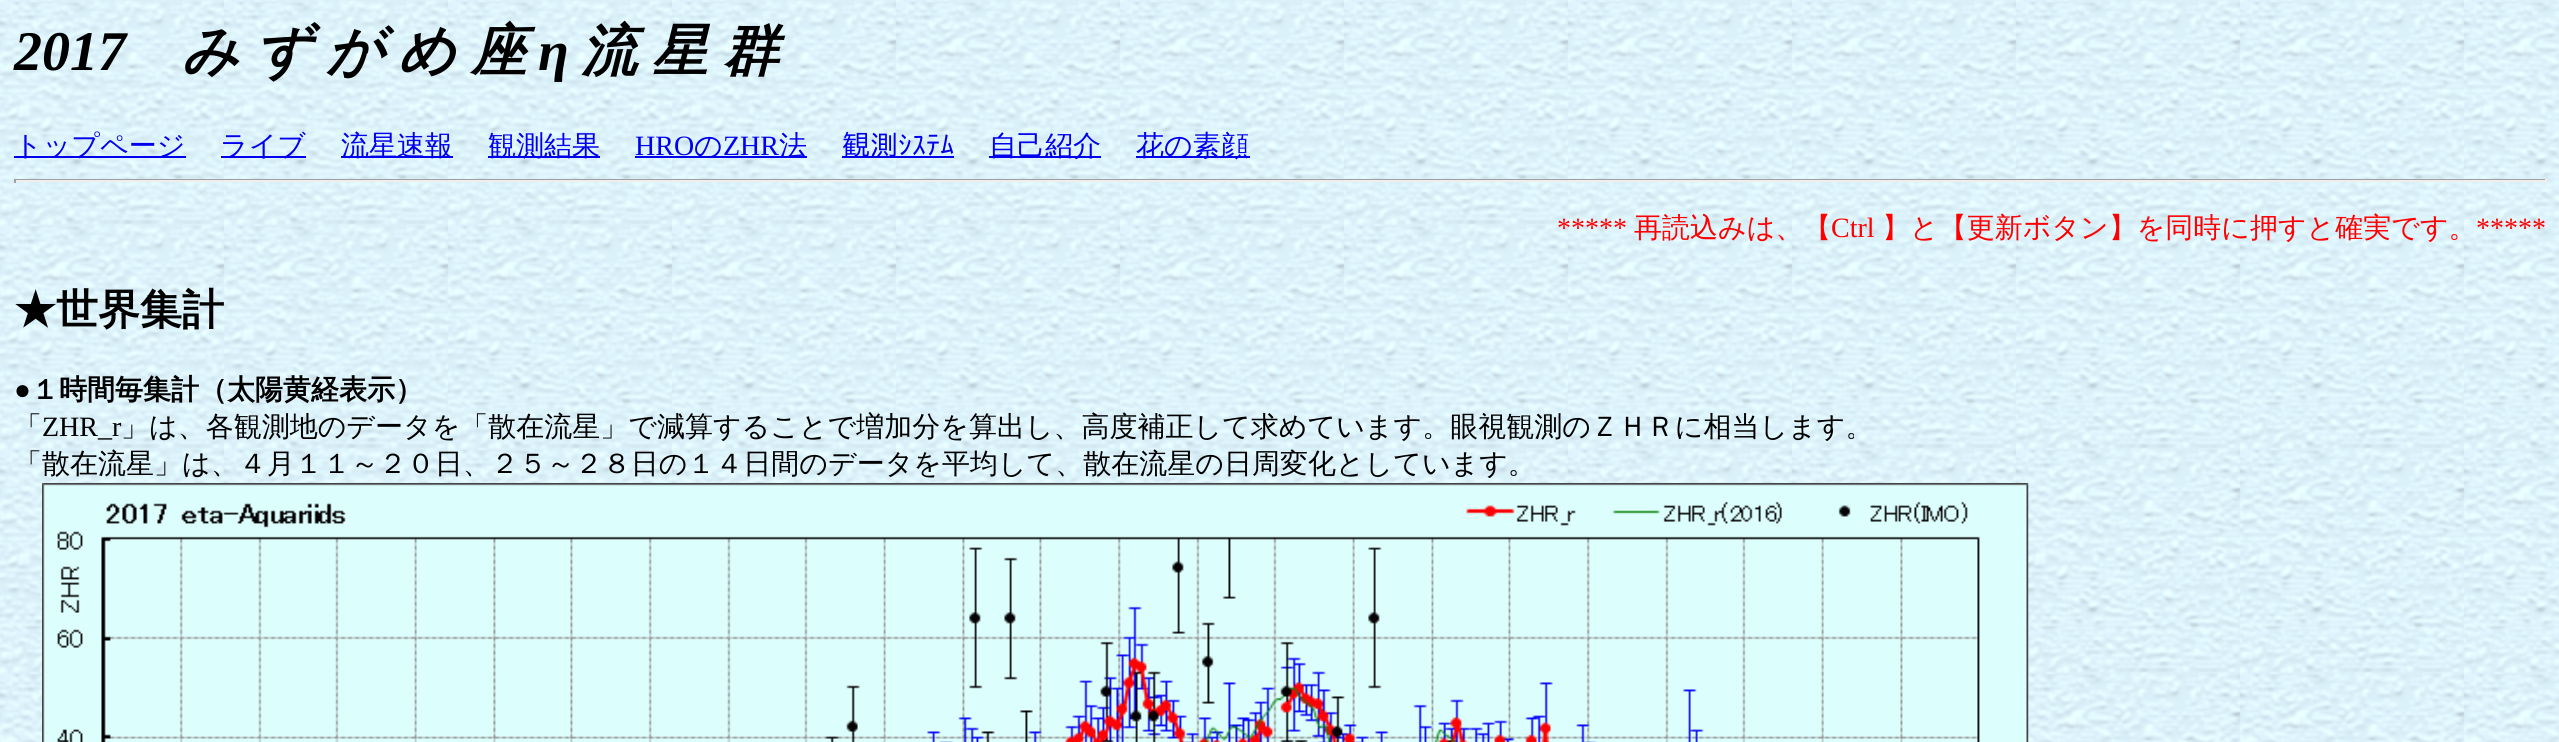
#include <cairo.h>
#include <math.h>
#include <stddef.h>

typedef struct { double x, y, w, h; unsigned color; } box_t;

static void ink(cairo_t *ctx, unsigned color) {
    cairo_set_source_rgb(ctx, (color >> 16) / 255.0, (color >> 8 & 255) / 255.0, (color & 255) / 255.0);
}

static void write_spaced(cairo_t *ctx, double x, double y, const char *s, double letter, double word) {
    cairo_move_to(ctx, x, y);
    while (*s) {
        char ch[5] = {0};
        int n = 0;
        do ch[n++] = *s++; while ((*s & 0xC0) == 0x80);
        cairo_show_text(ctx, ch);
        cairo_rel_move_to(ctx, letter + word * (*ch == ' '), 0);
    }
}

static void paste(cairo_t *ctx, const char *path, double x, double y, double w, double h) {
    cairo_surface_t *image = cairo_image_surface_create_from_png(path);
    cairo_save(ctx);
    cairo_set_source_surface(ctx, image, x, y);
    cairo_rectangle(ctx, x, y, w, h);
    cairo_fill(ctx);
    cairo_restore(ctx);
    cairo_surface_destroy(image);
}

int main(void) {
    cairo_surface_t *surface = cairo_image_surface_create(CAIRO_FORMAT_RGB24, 2559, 742);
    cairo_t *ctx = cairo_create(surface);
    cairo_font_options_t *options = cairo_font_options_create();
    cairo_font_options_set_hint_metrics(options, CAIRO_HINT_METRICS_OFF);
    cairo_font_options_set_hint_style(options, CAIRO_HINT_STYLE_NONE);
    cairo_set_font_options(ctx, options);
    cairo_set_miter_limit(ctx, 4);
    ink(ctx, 0xFFFFFF);
    cairo_paint(ctx);
    paste(ctx, "media/1.png", 0, 0, 2559, 742);
    cairo_select_font_face(ctx, "Liberation Serif", CAIRO_FONT_SLANT_ITALIC, CAIRO_FONT_WEIGHT_BOLD);
    cairo_set_font_size(ctx, 56);
    ink(ctx, 0x000000);
    cairo_move_to(ctx, 14, 70);
    cairo_show_text(ctx, "2017");
    cairo_select_font_face(ctx, "WenQuanYi Zen Hei", CAIRO_FONT_SLANT_ITALIC, CAIRO_FONT_WEIGHT_BOLD);
    write_spaced(ctx, 182, 70, "み ず が め 座", 0, -2);
    cairo_select_font_face(ctx, "Liberation Serif", CAIRO_FONT_SLANT_ITALIC, CAIRO_FONT_WEIGHT_BOLD);
    cairo_move_to(ctx, 538, 70);
    cairo_show_text(ctx, "η");
    cairo_select_font_face(ctx, "WenQuanYi Zen Hei", CAIRO_FONT_SLANT_ITALIC, CAIRO_FONT_WEIGHT_BOLD);
    write_spaced(ctx, 581, 70, "流 星 群", 0, -2);
    ink(ctx, 0x0000EE);
    cairo_rectangle(ctx, 14, 156, 172, 2);
    cairo_fill(ctx);
    cairo_select_font_face(ctx, "WenQuanYi Zen Hei Medium", CAIRO_FONT_SLANT_NORMAL, CAIRO_FONT_WEIGHT_NORMAL);
    cairo_set_font_size(ctx, 28);
    cairo_move_to(ctx, 14, 155);
    cairo_show_text(ctx, "トップページ");
    cairo_rectangle(ctx, 221, 156, 85, 2);
    cairo_fill(ctx);
    cairo_move_to(ctx, 220, 155);
    cairo_show_text(ctx, "ライブ");
    cairo_rectangle(ctx, 341, 156, 112, 2);
    cairo_fill(ctx);
    cairo_move_to(ctx, 341, 155);
    cairo_show_text(ctx, "流星速報");
    cairo_rectangle(ctx, 488, 156, 112, 2);
    cairo_fill(ctx);
    cairo_move_to(ctx, 488, 155);
    cairo_show_text(ctx, "観測結果");
    cairo_select_font_face(ctx, "Liberation Serif", CAIRO_FONT_SLANT_NORMAL, CAIRO_FONT_WEIGHT_NORMAL);
    cairo_move_to(ctx, 635, 155);
    cairo_show_text(ctx, "HRO");
    cairo_rectangle(ctx, 635, 156, 172, 2);
    cairo_fill(ctx);
    cairo_select_font_face(ctx, "WenQuanYi Zen Hei Medium", CAIRO_FONT_SLANT_NORMAL, CAIRO_FONT_WEIGHT_NORMAL);
    cairo_move_to(ctx, 694, 155);
    cairo_show_text(ctx, "の");
    cairo_select_font_face(ctx, "Liberation Serif", CAIRO_FONT_SLANT_NORMAL, CAIRO_FONT_WEIGHT_NORMAL);
    cairo_move_to(ctx, 723, 155);
    cairo_show_text(ctx, "ZHR");
    cairo_select_font_face(ctx, "WenQuanYi Zen Hei Medium", CAIRO_FONT_SLANT_NORMAL, CAIRO_FONT_WEIGHT_NORMAL);
    cairo_move_to(ctx, 779, 155);
    cairo_show_text(ctx, "法");
    cairo_rectangle(ctx, 842, 156, 112, 2);
    cairo_fill(ctx);
    cairo_select_font_face(ctx, "IPAGothic", CAIRO_FONT_SLANT_NORMAL, CAIRO_FONT_WEIGHT_NORMAL);
    cairo_move_to(ctx, 842, 155);
    cairo_show_text(ctx, "観測ｼｽﾃﾑ");
    cairo_rectangle(ctx, 989, 156, 112, 2);
    cairo_fill(ctx);
    cairo_select_font_face(ctx, "WenQuanYi Zen Hei Medium", CAIRO_FONT_SLANT_NORMAL, CAIRO_FONT_WEIGHT_NORMAL);
    cairo_move_to(ctx, 989, 155);
    cairo_show_text(ctx, "自己紹介");
    cairo_rectangle(ctx, 1136, 156, 114, 2);
    cairo_fill(ctx);
    cairo_move_to(ctx, 1136, 155);
    cairo_show_text(ctx, "花の素顔");
    {
        static const box_t items[] = {
            {14, 179, 2532, 1, 0x9F9F9F},
            {2545, 179, 2, 4, 0xEEEEEE},
            {14, 180, 2532, 2, 0xEEEEEE},
            {14, 179, 2, 4, 0x9F9F9F},
        };
        for (size_t i = 0; i < sizeof items / sizeof *items; i++) {
            ink(ctx, items[i].color);
            cairo_rectangle(ctx, items[i].x, items[i].y, items[i].w, items[i].h);
            cairo_fill(ctx);
        }
    }
    cairo_select_font_face(ctx, "Liberation Serif", CAIRO_FONT_SLANT_NORMAL, CAIRO_FONT_WEIGHT_NORMAL);
    ink(ctx, 0xFF0000);
    cairo_move_to(ctx, 1557, 237);
    cairo_show_text(ctx, "*****");
    cairo_select_font_face(ctx, "WenQuanYi Zen Hei Medium", CAIRO_FONT_SLANT_NORMAL, CAIRO_FONT_WEIGHT_NORMAL);
    cairo_move_to(ctx, 1634, 237);
    cairo_show_text(ctx, "再読込みは、【");
    cairo_select_font_face(ctx, "Liberation Serif", CAIRO_FONT_SLANT_NORMAL, CAIRO_FONT_WEIGHT_NORMAL);
    cairo_move_to(ctx, 1831, 237);
    cairo_show_text(ctx, "Ctrl");
    cairo_select_font_face(ctx, "WenQuanYi Zen Hei Medium", CAIRO_FONT_SLANT_NORMAL, CAIRO_FONT_WEIGHT_NORMAL);
    cairo_move_to(ctx, 1882, 237);
    cairo_show_text(ctx, "】と【更新ボタン】を同時に押すと確実です。");
    cairo_select_font_face(ctx, "Liberation Serif", CAIRO_FONT_SLANT_NORMAL, CAIRO_FONT_WEIGHT_NORMAL);
    cairo_move_to(ctx, 2476, 237);
    cairo_show_text(ctx, "*****");
    cairo_select_font_face(ctx, "WenQuanYi Zen Hei", CAIRO_FONT_SLANT_NORMAL, CAIRO_FONT_WEIGHT_BOLD);
    cairo_set_font_size(ctx, 42);
    ink(ctx, 0x000000);
    cairo_move_to(ctx, 14, 324);
    cairo_show_text(ctx, "★世界集計");
    cairo_select_font_face(ctx, "Liberation Serif", CAIRO_FONT_SLANT_NORMAL, CAIRO_FONT_WEIGHT_BOLD);
    cairo_set_font_size(ctx, 28);
    cairo_move_to(ctx, 14, 399);
    cairo_show_text(ctx, "●");
    cairo_select_font_face(ctx, "WenQuanYi Zen Hei", CAIRO_FONT_SLANT_NORMAL, CAIRO_FONT_WEIGHT_BOLD);
    cairo_move_to(ctx, 31, 399);
    cairo_show_text(ctx, "１時間毎集計（太陽黄経表示）");
    cairo_select_font_face(ctx, "WenQuanYi Zen Hei Medium", CAIRO_FONT_SLANT_NORMAL, CAIRO_FONT_WEIGHT_NORMAL);
    cairo_move_to(ctx, 14, 436);
    cairo_show_text(ctx, "「");
    cairo_select_font_face(ctx, "Liberation Serif", CAIRO_FONT_SLANT_NORMAL, CAIRO_FONT_WEIGHT_NORMAL);
    cairo_move_to(ctx, 42, 436);
    cairo_show_text(ctx, "ZHR_r");
    cairo_select_font_face(ctx, "WenQuanYi Zen Hei Medium", CAIRO_FONT_SLANT_NORMAL, CAIRO_FONT_WEIGHT_NORMAL);
    cairo_move_to(ctx, 121, 436);
    cairo_show_text(ctx, "」は、各観測地のデータを「散在流星」で減算することで増加分を算出し、高度補正して求めています。眼視観測のＺＨＲに相当します。");
    cairo_move_to(ctx, 14, 473);
    cairo_show_text(ctx, "「散在流星」は、４月１１～２０日、２５～２８日の１４日間のデータを平均して、散在流星の日周変化としています。");
    paste(ctx, "media/2.png", 42, 483, 1987, 259);
    cairo_surface_write_to_png(surface, "image.png");
    cairo_font_options_destroy(options);
    cairo_destroy(ctx);
    cairo_surface_destroy(surface);
    return 0;
}
